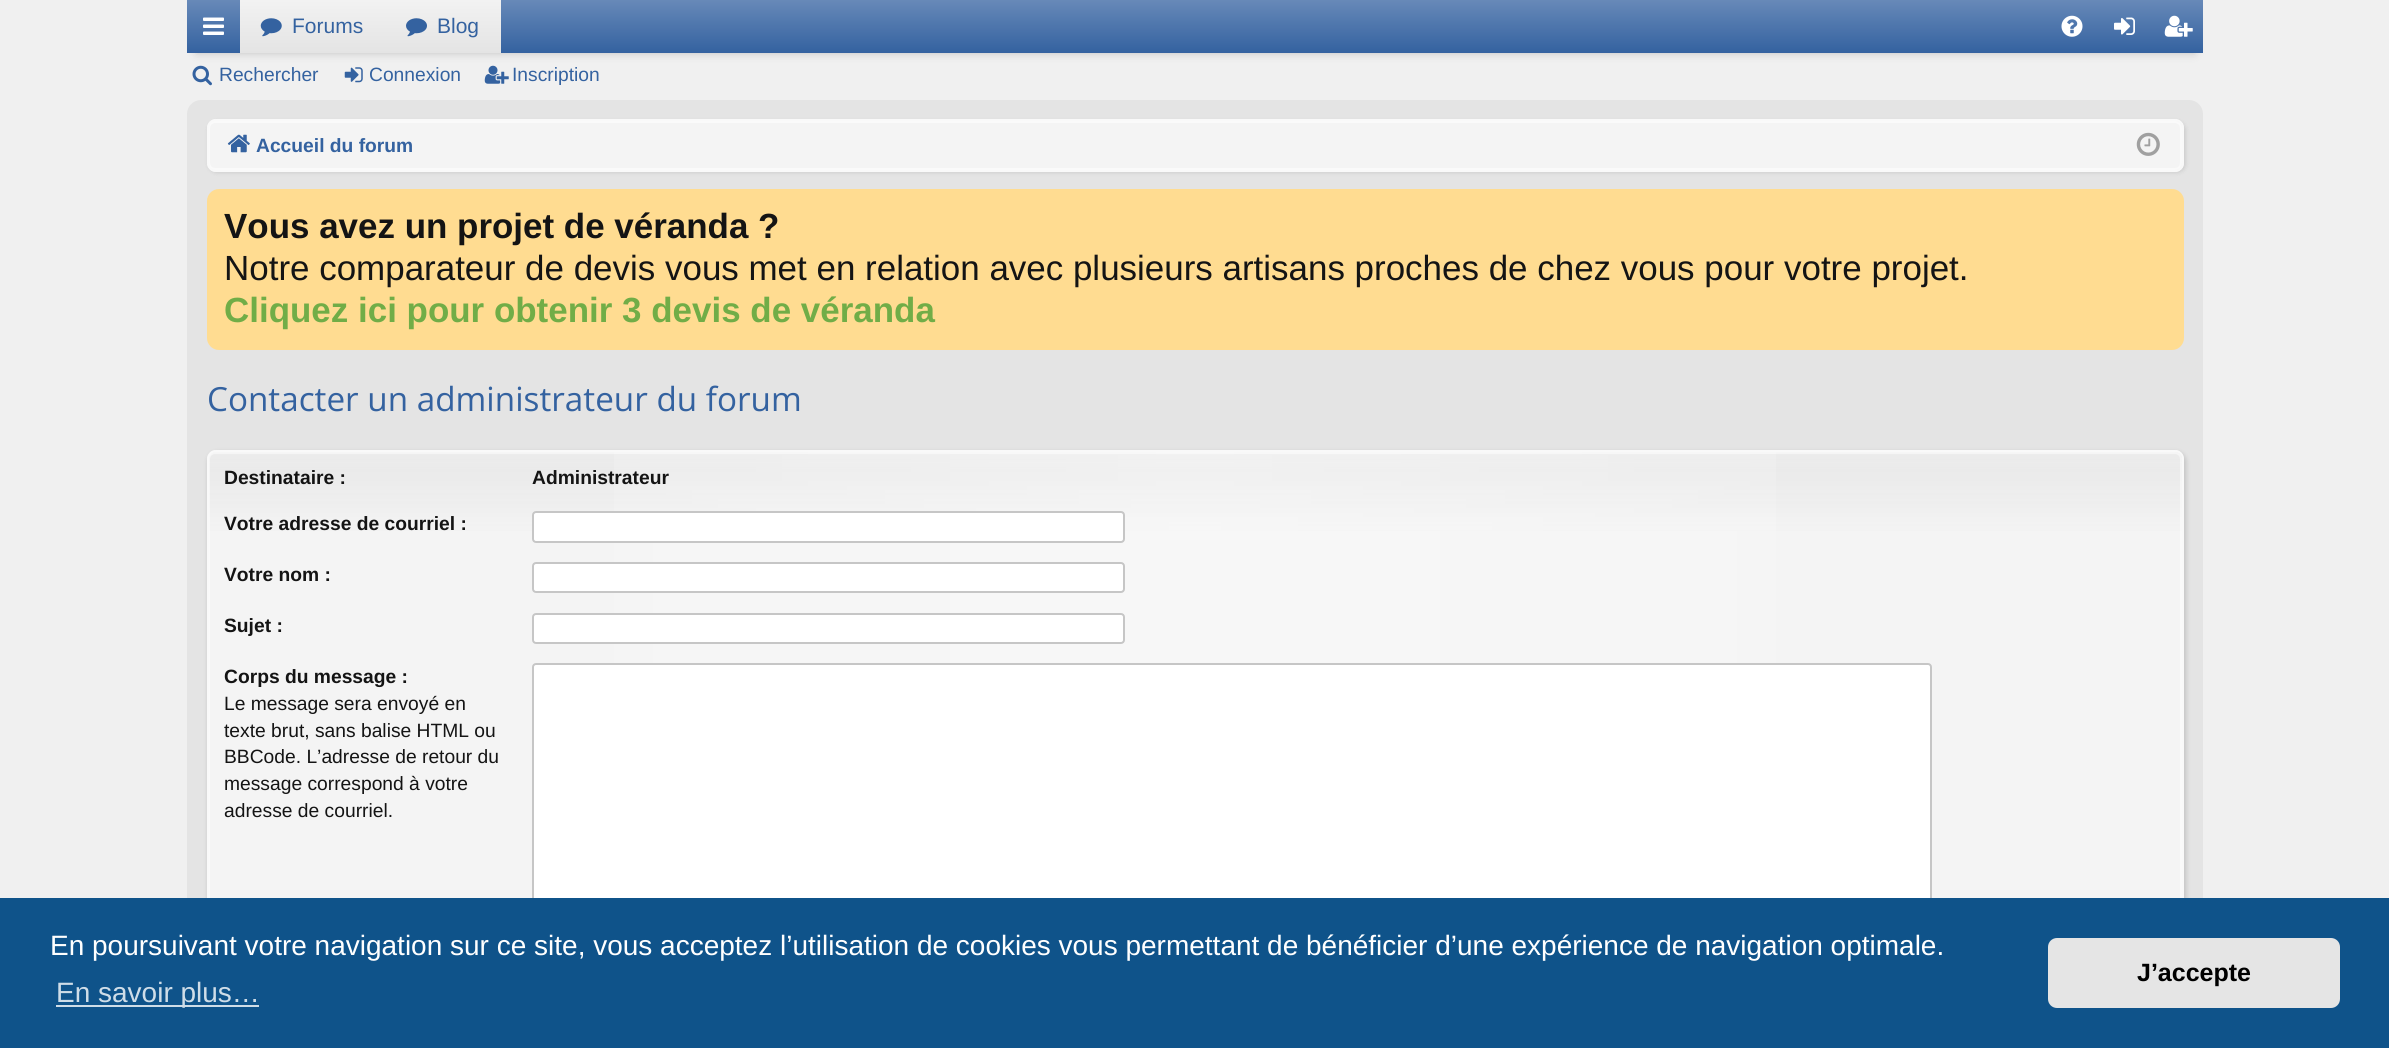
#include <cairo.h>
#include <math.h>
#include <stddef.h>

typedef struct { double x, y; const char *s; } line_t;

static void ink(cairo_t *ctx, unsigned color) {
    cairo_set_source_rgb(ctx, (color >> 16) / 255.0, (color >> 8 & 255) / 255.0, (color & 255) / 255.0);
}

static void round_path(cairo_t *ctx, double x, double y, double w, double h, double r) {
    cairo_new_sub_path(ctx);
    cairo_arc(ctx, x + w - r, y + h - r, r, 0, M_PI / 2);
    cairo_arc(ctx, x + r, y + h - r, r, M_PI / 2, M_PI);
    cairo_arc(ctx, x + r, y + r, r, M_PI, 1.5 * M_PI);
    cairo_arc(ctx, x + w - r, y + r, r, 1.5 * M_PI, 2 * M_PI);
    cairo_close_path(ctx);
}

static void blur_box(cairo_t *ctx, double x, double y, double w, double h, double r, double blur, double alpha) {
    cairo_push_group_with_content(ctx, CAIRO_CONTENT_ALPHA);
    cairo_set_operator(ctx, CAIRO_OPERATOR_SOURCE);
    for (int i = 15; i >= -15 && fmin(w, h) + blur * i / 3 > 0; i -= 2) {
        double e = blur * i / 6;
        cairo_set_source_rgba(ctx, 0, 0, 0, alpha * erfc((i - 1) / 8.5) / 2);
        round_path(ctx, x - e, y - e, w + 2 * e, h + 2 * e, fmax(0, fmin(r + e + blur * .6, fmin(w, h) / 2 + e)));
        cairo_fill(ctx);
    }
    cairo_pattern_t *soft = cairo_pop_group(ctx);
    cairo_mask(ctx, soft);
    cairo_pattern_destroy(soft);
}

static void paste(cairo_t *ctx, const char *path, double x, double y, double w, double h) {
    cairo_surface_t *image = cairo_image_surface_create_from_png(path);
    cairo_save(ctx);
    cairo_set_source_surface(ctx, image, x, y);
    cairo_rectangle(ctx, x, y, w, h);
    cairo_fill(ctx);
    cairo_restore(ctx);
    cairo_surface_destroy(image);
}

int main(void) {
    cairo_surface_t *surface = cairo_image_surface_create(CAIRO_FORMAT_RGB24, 2389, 1048);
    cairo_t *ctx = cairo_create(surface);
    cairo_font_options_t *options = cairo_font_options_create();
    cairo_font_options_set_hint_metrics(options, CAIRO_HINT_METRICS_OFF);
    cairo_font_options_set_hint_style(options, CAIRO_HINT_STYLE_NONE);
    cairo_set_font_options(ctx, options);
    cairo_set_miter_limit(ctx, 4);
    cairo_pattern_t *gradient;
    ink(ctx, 0xF0F0F0);
    cairo_paint(ctx);
    paste(ctx, "media/7.png", 192, 65, 20, 21);
    paste(ctx, "media/8.png", 344, 67, 19, 16);
    paste(ctx, "media/9.png", 484, 65, 25, 19);
    ink(ctx, 0x000000);
    blur_box(ctx, 196, 18, 1999, 35, 0, 4.5, 0.2);
    gradient = cairo_pattern_create_linear(1195, 0, 1195, 53);
    cairo_pattern_add_color_stop_rgba(gradient, 0, 0.404, 0.537, 0.722, 1);
    cairo_pattern_add_color_stop_rgba(gradient, 1, 0.204, 0.384, 0.627, 1);
    cairo_set_source(ctx, gradient);
    cairo_pattern_destroy(gradient);
    cairo_rectangle(ctx, 187, 0, 2016, 53);
    cairo_fill(ctx);
    paste(ctx, "media/1.png", 203, 17, 21, 18);
    gradient = cairo_pattern_create_linear(312, 0, 312, 53);
    cairo_pattern_add_color_stop_rgba(gradient, 0, 0.949, 0.949, 0.949, 1);
    cairo_pattern_add_color_stop_rgba(gradient, 1, 0.894, 0.894, 0.894, 1);
    cairo_set_source(ctx, gradient);
    cairo_pattern_destroy(gradient);
    cairo_rectangle(ctx, 240, 0, 145, 53);
    cairo_fill(ctx);
    paste(ctx, "media/2.png", 260, 18, 22, 19);
    cairo_select_font_face(ctx, "Liberation Sans", CAIRO_FONT_SLANT_NORMAL, CAIRO_FONT_WEIGHT_NORMAL);
    cairo_set_font_size(ctx, 21);
    ink(ctx, 0x3462A0);
    cairo_move_to(ctx, 292, 33);
    cairo_show_text(ctx, "Forums");
    gradient = cairo_pattern_create_linear(443, 0, 443, 53);
    cairo_pattern_add_color_stop_rgba(gradient, 0, 0.949, 0.949, 0.949, 1);
    cairo_pattern_add_color_stop_rgba(gradient, 1, 0.894, 0.894, 0.894, 1);
    cairo_set_source(ctx, gradient);
    cairo_pattern_destroy(gradient);
    cairo_rectangle(ctx, 385, 0, 116, 53);
    cairo_fill(ctx);
    paste(ctx, "media/3.png", 406, 18, 21, 19);
    ink(ctx, 0x3462A0);
    cairo_move_to(ctx, 437, 33);
    cairo_show_text(ctx, "Blog");
    paste(ctx, "media/4.png", 2061, 15, 22, 22);
    paste(ctx, "media/5.png", 2114, 17, 21, 18);
    paste(ctx, "media/6.png", 2164, 15, 29, 22);
    cairo_set_font_size(ctx, 19.25);
    {
        static const line_t items[] = {
            {219, 81, "Rechercher"},
            {369, 81, "Connexion"},
            {512, 81, "Inscription"},
        };
        for (size_t i = 0; i < sizeof items / sizeof *items; i++) {
            cairo_move_to(ctx, items[i].x, items[i].y);
            cairo_show_text(ctx, items[i].s);
        }
    }
    ink(ctx, 0xE4E4E4);
    round_path(ctx, 188, 101, 2014, 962, 13);
    cairo_fill_preserve(ctx);
    cairo_stroke(ctx);
    ink(ctx, 0x000000);
    blur_box(ctx, 208, 121, 1978, 52, 9, 2, 0.1);
    ink(ctx, 0xF4F4F4);
    round_path(ctx, 207, 119, 1977, 53, 9);
    cairo_fill(ctx);
    round_path(ctx, 209, 122, 1972, 47, 6);
    ink(ctx, 0xFAFAFA);
    cairo_stroke(ctx);
    round_path(ctx, 208, 120, 1975, 51, 8);
    ink(ctx, 0xF9F9F9);
    cairo_stroke(ctx);
    paste(ctx, "media/10.png", 227, 134, 23, 19);
    cairo_select_font_face(ctx, "Liberation Sans", CAIRO_FONT_SLANT_NORMAL, CAIRO_FONT_WEIGHT_BOLD);
    ink(ctx, 0x3462A0);
    cairo_move_to(ctx, 256, 152);
    cairo_show_text(ctx, "Accueil du forum");
    paste(ctx, "media/11.png", 2136, 132, 24, 24);
    ink(ctx, 0xFFDC91);
    round_path(ctx, 207, 189, 1977, 161, 12);
    cairo_fill(ctx);
    cairo_set_font_size(ctx, 34.95);
    ink(ctx, 0x141414);
    cairo_move_to(ctx, 224, 238);
    cairo_show_text(ctx, "Vous avez un projet de véranda ?");
    cairo_select_font_face(ctx, "Liberation Sans", CAIRO_FONT_SLANT_NORMAL, CAIRO_FONT_WEIGHT_NORMAL);
    cairo_move_to(ctx, 224, 280);
    cairo_show_text(ctx, "Notre comparateur de devis vous met en relation avec plusieurs artisans proches de chez vous pour votre projet.");
    cairo_select_font_face(ctx, "Liberation Sans", CAIRO_FONT_SLANT_NORMAL, CAIRO_FONT_WEIGHT_BOLD);
    ink(ctx, 0x71AD47);
    cairo_move_to(ctx, 224, 322);
    cairo_show_text(ctx, "Cliquez ici pour obtenir 3 devis de véranda");
    cairo_select_font_face(ctx, "Open Sans", CAIRO_FONT_SLANT_NORMAL, CAIRO_FONT_WEIGHT_NORMAL);
    cairo_set_font_size(ctx, 33.25);
    ink(ctx, 0x3462A0);
    cairo_move_to(ctx, 207, 411);
    cairo_show_text(ctx, "Contacter un administrateur du forum");
    ink(ctx, 0x000000);
    blur_box(ctx, 208, 452, 1978, 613, 9, 2.5, 0.15);
    ink(ctx, 0xF4F4F4);
    round_path(ctx, 207, 450, 1977, 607, 9);
    cairo_fill(ctx);
    cairo_save(ctx);
    round_path(ctx, 207, 450, 1977, 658, 9);
    cairo_clip(ctx);
    gradient = cairo_pattern_create_linear(1195, 451, 1195, 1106);
    cairo_pattern_add_color_stop_rgba(gradient, 0, 0.8, 0.8, 0.8, 0.2);
    cairo_pattern_add_color_stop_rgba(gradient, 0.03, 0.8, 0.8, 0.8, 0.25);
    cairo_pattern_add_color_stop_rgba(gradient, 0.13, 0.8, 0.8, 0.8, 0);
    cairo_set_source(ctx, gradient);
    cairo_pattern_destroy(gradient);
    cairo_rectangle(ctx, 207, 452, 1977, 79);
    cairo_fill(ctx);
    cairo_restore(ctx);
    gradient = cairo_pattern_create_linear(208, 779, 2182, 779);
    cairo_pattern_add_color_stop_rgba(gradient, 0, 1, 1, 1, 0);
    cairo_pattern_add_color_stop_rgba(gradient, 0.5, 1, 1, 1, 0.3);
    cairo_pattern_add_color_stop_rgba(gradient, 1, 1, 1, 1, 0);
    cairo_set_source(ctx, gradient);
    cairo_pattern_destroy(gradient);
    cairo_rectangle(ctx, 614, 452, 1162, 446);
    cairo_fill(ctx);
    round_path(ctx, 209, 453, 1972, 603, 6);
    cairo_set_source_rgba(ctx, 1, 1, 1, 0.5);
    cairo_stroke(ctx);
    round_path(ctx, 208, 451, 1975, 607, 8);
    ink(ctx, 0xF9F9F9);
    cairo_stroke(ctx);
    cairo_select_font_face(ctx, "Liberation Sans", CAIRO_FONT_SLANT_NORMAL, CAIRO_FONT_WEIGHT_BOLD);
    cairo_set_font_size(ctx, 19.25);
    ink(ctx, 0x141414);
    {
        static const line_t items[] = {
            {224, 484, "Destinataire :"},
            {532, 484, "Administrateur"},
            {224, 530, "Votre adresse de courriel :"},
        };
        for (size_t i = 0; i < sizeof items / sizeof *items; i++) {
            cairo_move_to(ctx, items[i].x, items[i].y);
            cairo_show_text(ctx, items[i].s);
        }
    }
    ink(ctx, 0xFFFFFF);
    round_path(ctx, 533, 512, 591, 30, 3);
    cairo_fill_preserve(ctx);
    ink(ctx, 0xC6C6C6);
    cairo_stroke(ctx);
    ink(ctx, 0x141414);
    cairo_move_to(ctx, 224, 581);
    cairo_show_text(ctx, "Votre nom :");
    ink(ctx, 0xFFFFFF);
    round_path(ctx, 533, 563, 591, 29, 3);
    cairo_fill_preserve(ctx);
    ink(ctx, 0xC6C6C6);
    cairo_stroke(ctx);
    ink(ctx, 0x141414);
    cairo_move_to(ctx, 224, 632);
    cairo_show_text(ctx, "Sujet :");
    ink(ctx, 0xFFFFFF);
    round_path(ctx, 533, 614, 591, 29, 3);
    cairo_fill_preserve(ctx);
    ink(ctx, 0xC6C6C6);
    cairo_stroke(ctx);
    ink(ctx, 0x141414);
    cairo_move_to(ctx, 224, 683);
    cairo_show_text(ctx, "Corps du message :");
    cairo_select_font_face(ctx, "Liberation Sans", CAIRO_FONT_SLANT_NORMAL, CAIRO_FONT_WEIGHT_NORMAL);
    {
        static const line_t items[] = {
            {224, 710, "Le message sera envoyé en"},
            {224, 737, "texte brut, sans balise HTML ou"},
            {224, 763, "BBCode. L’adresse de retour du"},
            {224, 790, "message correspond à votre"},
            {224, 817, "adresse de courriel."},
        };
        for (size_t i = 0; i < sizeof items / sizeof *items; i++) {
            cairo_move_to(ctx, items[i].x, items[i].y);
            cairo_show_text(ctx, items[i].s);
        }
    }
    ink(ctx, 0xFFFFFF);
    round_path(ctx, 533, 664, 1398, 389, 3);
    cairo_fill_preserve(ctx);
    ink(ctx, 0xC6C6C6);
    cairo_stroke(ctx);
    ink(ctx, 0x0F538A);
    cairo_rectangle(ctx, 0, 898, 2389, 150);
    cairo_fill(ctx);
    cairo_set_font_size(ctx, 28);
    ink(ctx, 0xFFFFFF);
    cairo_move_to(ctx, 50, 955);
    cairo_show_text(ctx, "En poursuivant votre navigation sur ce site, vous acceptez l’utilisation de cookies vous permettant de bénéficier d’une expérience de navigation optimale.");
    ink(ctx, 0xCFDDE8);
    cairo_rectangle(ctx, 56, 1005, 203, 2);
    cairo_fill(ctx);
    cairo_move_to(ctx, 56, 1002);
    cairo_show_text(ctx, "En savoir plus…");
    ink(ctx, 0xE5E5E5);
    round_path(ctx, 2048, 938, 292, 70, 9);
    cairo_fill(ctx);
    cairo_select_font_face(ctx, "Liberation Sans", CAIRO_FONT_SLANT_NORMAL, CAIRO_FONT_WEIGHT_BOLD);
    cairo_set_font_size(ctx, 25);
    ink(ctx, 0x000000);
    cairo_move_to(ctx, 2137, 981);
    cairo_show_text(ctx, "J’accepte");
    cairo_surface_write_to_png(surface, "image.png");
    cairo_font_options_destroy(options);
    cairo_destroy(ctx);
    cairo_surface_destroy(surface);
    return 0;
}
